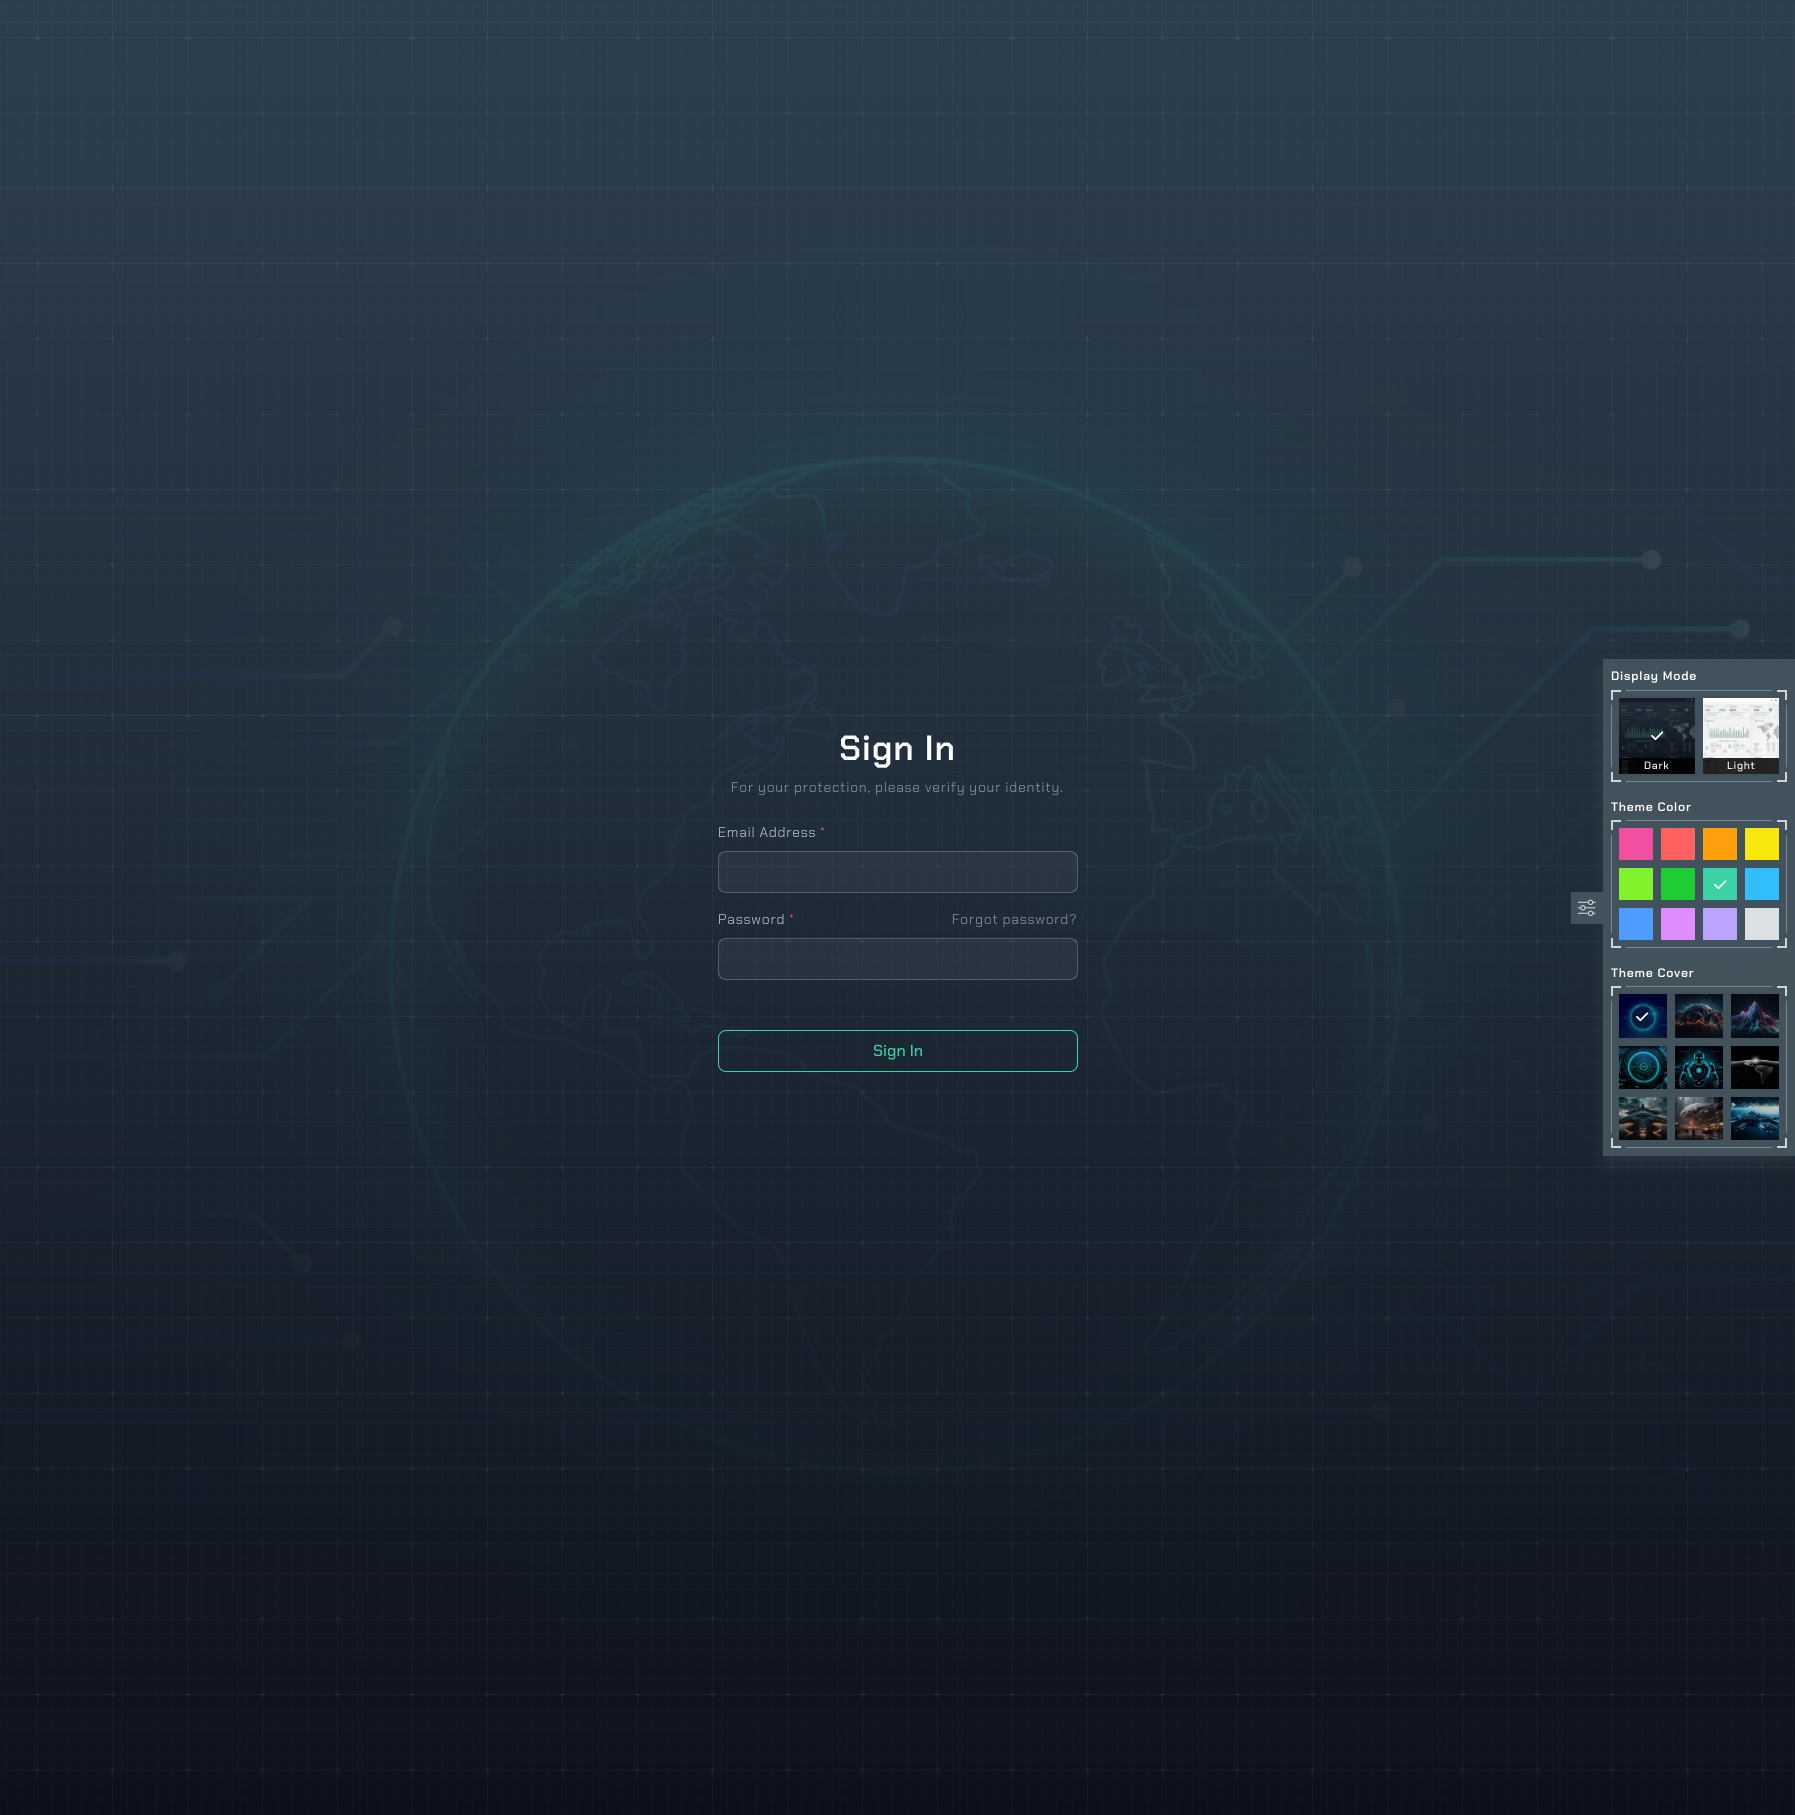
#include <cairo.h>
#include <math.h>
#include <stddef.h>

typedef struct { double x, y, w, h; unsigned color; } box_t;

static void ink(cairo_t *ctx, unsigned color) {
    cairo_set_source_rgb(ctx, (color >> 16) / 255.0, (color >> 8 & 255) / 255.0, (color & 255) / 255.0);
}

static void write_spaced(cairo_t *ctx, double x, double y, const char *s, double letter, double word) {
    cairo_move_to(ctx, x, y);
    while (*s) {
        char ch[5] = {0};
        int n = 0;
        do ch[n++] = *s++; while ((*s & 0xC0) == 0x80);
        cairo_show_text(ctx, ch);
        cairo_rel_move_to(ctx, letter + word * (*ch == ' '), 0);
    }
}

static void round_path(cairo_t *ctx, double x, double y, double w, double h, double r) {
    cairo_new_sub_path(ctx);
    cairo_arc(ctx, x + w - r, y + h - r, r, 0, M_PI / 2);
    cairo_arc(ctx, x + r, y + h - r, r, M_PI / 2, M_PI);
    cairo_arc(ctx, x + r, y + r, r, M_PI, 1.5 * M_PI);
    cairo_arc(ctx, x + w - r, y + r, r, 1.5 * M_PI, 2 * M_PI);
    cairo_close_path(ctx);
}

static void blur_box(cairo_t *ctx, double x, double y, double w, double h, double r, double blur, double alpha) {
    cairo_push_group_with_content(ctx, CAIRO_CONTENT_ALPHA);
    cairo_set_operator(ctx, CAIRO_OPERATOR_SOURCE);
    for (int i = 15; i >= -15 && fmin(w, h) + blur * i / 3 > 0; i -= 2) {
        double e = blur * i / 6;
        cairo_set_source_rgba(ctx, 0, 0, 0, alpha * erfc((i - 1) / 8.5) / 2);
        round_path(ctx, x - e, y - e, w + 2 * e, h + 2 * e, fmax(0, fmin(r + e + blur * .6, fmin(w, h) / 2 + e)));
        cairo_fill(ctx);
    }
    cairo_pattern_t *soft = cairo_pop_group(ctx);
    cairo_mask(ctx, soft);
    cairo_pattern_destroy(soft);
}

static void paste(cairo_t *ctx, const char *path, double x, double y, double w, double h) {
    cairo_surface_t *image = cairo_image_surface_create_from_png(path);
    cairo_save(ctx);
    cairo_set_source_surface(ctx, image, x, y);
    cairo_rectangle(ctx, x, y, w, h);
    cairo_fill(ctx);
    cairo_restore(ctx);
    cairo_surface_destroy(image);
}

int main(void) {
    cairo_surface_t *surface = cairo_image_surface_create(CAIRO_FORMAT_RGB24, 1795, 1815);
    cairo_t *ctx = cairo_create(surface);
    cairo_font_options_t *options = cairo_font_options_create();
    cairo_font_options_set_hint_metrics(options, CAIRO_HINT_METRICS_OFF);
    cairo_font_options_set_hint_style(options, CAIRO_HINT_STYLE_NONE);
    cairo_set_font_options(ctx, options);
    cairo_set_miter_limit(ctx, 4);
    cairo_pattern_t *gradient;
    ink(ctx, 0xFFFFFF);
    cairo_paint(ctx);
    paste(ctx, "media/1.png", 0, 0, 1795, 1709);
    gradient = cairo_pattern_create_linear(897, 0, 898, 1815);
    cairo_pattern_add_color_stop_rgba(gradient, 0, 0.196, 0.275, 0.314, 0.9);
    cairo_pattern_add_color_stop_rgba(gradient, 1, 0.051, 0.063, 0.106, 1);
    cairo_set_source(ctx, gradient);
    cairo_pattern_destroy(gradient);
    cairo_rectangle(ctx, 0, 0, 1795, 1815);
    cairo_fill(ctx);
    paste(ctx, "media/2.png", 0, 0, 1795, 1815);
    cairo_select_font_face(ctx, "Chakra Petch SemiBold", CAIRO_FONT_SLANT_NORMAL, CAIRO_FONT_WEIGHT_NORMAL);
    cairo_set_font_size(ctx, 35);
    ink(ctx, 0xFFFFFF);
    write_spaced(ctx, 839, 760, "Sign In", 0.75, 0);
    cairo_select_font_face(ctx, "Chakra Petch Light", CAIRO_FONT_SLANT_NORMAL, CAIRO_FONT_WEIGHT_NORMAL);
    cairo_set_font_size(ctx, 14);
    ink(ctx, 0x90979D);
    write_spaced(ctx, 731, 792, "For your protection, please verify your identity.", 0.75, 0);
    ink(ctx, 0xC7CACE);
    write_spaced(ctx, 718, 837, "Email Address", 0.75, 0);
    ink(ctx, 0xFF6060);
    write_spaced(ctx, 820, 837, "*", 0.75, 0);
    cairo_set_source_rgba(ctx, 1, 1, 1, 0.05);
    cairo_rectangle(ctx, 719, 852, 358, 40);
    cairo_fill(ctx);
    round_path(ctx, 718.5, 851.5, 359, 41, 7.5);
    cairo_set_source_rgba(ctx, 1, 1, 1, 0.25);
    cairo_set_line_width(ctx, 1);
    cairo_stroke(ctx);
    ink(ctx, 0xC7CACE);
    write_spaced(ctx, 718, 924, "Password", 0.75, 0);
    ink(ctx, 0xFF6060);
    write_spaced(ctx, 789, 924, "*", 0.75, 0);
    ink(ctx, 0x90979D);
    write_spaced(ctx, 952, 924, "Forgot password?", 0.75, 0);
    cairo_set_source_rgba(ctx, 1, 1, 1, 0.05);
    cairo_rectangle(ctx, 719, 939, 358, 40);
    cairo_fill(ctx);
    round_path(ctx, 718.5, 938.5, 359, 41, 7.5);
    cairo_set_source_rgba(ctx, 1, 1, 1, 0.25);
    cairo_stroke(ctx);
    round_path(ctx, 718.5, 1030.5, 359, 41, 7.5);
    ink(ctx, 0x3CD2A5);
    cairo_stroke(ctx);
    cairo_select_font_face(ctx, "Chakra Petch Medium", CAIRO_FONT_SLANT_NORMAL, CAIRO_FONT_WEIGHT_NORMAL);
    cairo_set_font_size(ctx, 16);
    cairo_move_to(ctx, 873, 1056);
    cairo_show_text(ctx, "Sign In");
    cairo_save(ctx);
    cairo_set_fill_rule(ctx, CAIRO_FILL_RULE_EVEN_ODD);
    cairo_new_path(ctx);
    cairo_move_to(ctx, 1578, 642);
    cairo_line_to(ctx, 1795, 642);
    cairo_line_to(ctx, 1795, 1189);
    cairo_line_to(ctx, 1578, 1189);
    cairo_close_path(ctx);
    cairo_move_to(ctx, 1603, 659);
    cairo_line_to(ctx, 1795, 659);
    cairo_line_to(ctx, 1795, 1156);
    cairo_line_to(ctx, 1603, 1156);
    cairo_close_path(ctx);
    cairo_clip(ctx);
    ink(ctx, 0xFFFFFF);
    blur_box(ctx, 1603, 667, 192, 497, 0, 8, 0.07);
    cairo_restore(ctx);
    cairo_set_source_rgba(ctx, 0.267, 0.333, 0.369, 0.95);
    cairo_rectangle(ctx, 1571, 892, 32, 32);
    cairo_fill(ctx);
    paste(ctx, "media/3.png", 1578, 899, 18, 17);
    cairo_rectangle(ctx, 1603, 659, 192, 497);
    cairo_fill(ctx);
    cairo_select_font_face(ctx, "Chakra Petch SemiBold", CAIRO_FONT_SLANT_NORMAL, CAIRO_FONT_WEIGHT_NORMAL);
    cairo_set_font_size(ctx, 12.25);
    ink(ctx, 0xFFFFFF);
    write_spaced(ctx, 1611, 680, "Display Mode", 0.75, 0);
    {
        static const box_t items[] = {
            {1611, 690, 10, 2, 0xD0D4D6},
            {1611, 692, 2, 8, 0xD0D4D6},
            {1777, 690, 10, 2, 0xD0D4D6},
            {1785, 692, 2, 8, 0xD0D4D6},
            {1611, 772, 2, 8, 0xD0D4D6},
            {1611, 780, 10, 2, 0xD0D4D6},
            {1785, 772, 2, 8, 0xD0D4D6},
            {1777, 780, 10, 2, 0xD0D4D6},
            {1626, 690, 146, 1, 0x7B878D},
            {1626, 781, 146, 1, 0x7B878D},
            {1786, 705, 1, 62, 0x7B878D},
            {1611, 705, 1, 62, 0x7B878D},
        };
        for (size_t i = 0; i < sizeof items / sizeof *items; i++) {
            ink(ctx, items[i].color);
            cairo_rectangle(ctx, items[i].x, items[i].y, items[i].w, items[i].h);
            cairo_fill(ctx);
        }
    }
    paste(ctx, "media/4.png", 1619, 698, 76, 76);
    paste(ctx, "media/5.png", 1651, 731, 13, 10);
    cairo_set_source_rgba(ctx, 0, 0, 0, 0.85);
    cairo_rectangle(ctx, 1619, 758, 76, 16);
    cairo_fill(ctx);
    cairo_select_font_face(ctx, "Chakra Petch Medium", CAIRO_FONT_SLANT_NORMAL, CAIRO_FONT_WEIGHT_NORMAL);
    cairo_set_font_size(ctx, 10.5);
    ink(ctx, 0xFFFFFF);
    write_spaced(ctx, 1644, 769, "Dark", 0.75, 0);
    paste(ctx, "media/6.png", 1703, 698, 76, 76);
    cairo_set_source_rgba(ctx, 0, 0, 0, 0.85);
    cairo_rectangle(ctx, 1703, 758, 76, 16);
    cairo_fill(ctx);
    ink(ctx, 0xFFFFFF);
    write_spaced(ctx, 1727, 769, "Light", 0.75, 0);
    cairo_select_font_face(ctx, "Chakra Petch SemiBold", CAIRO_FONT_SLANT_NORMAL, CAIRO_FONT_WEIGHT_NORMAL);
    cairo_set_font_size(ctx, 12.25);
    write_spaced(ctx, 1611, 811, "Theme Color", 0.75, 0);
    {
        static const box_t items[] = {
            {1611, 820, 10, 2, 0xD0D4D6},
            {1611, 822, 2, 8, 0xD0D4D6},
            {1777, 820, 10, 2, 0xD0D4D6},
            {1785, 822, 2, 8, 0xD0D4D6},
            {1611, 938, 2, 8, 0xD0D4D6},
            {1611, 946, 10, 2, 0xD0D4D6},
            {1785, 938, 2, 8, 0xD0D4D6},
            {1777, 946, 10, 2, 0xD0D4D6},
            {1626, 820, 146, 1, 0x7B878D},
            {1626, 947, 146, 1, 0x7B868D},
            {1619, 828, 34, 32, 0xF34FA0},
            {1661, 828, 34, 32, 0xFF6060},
            {1703, 828, 34, 32, 0xFF9F0C},
            {1745, 828, 34, 32, 0xF9E80D},
            {1619, 868, 34, 32, 0x81F32D},
            {1661, 868, 34, 32, 0x1ECC33},
            {1703, 868, 34, 32, 0x3CD2A5},
        };
        for (size_t i = 0; i < sizeof items / sizeof *items; i++) {
            ink(ctx, items[i].color);
            cairo_rectangle(ctx, items[i].x, items[i].y, items[i].w, items[i].h);
            cairo_fill(ctx);
        }
    }
    paste(ctx, "media/7.png", 1714, 880, 13, 10);
    {
        static const box_t items[] = {
            {1745, 868, 34, 32, 0x30BEFF},
            {1619, 908, 34, 32, 0x4E9CFF},
            {1661, 908, 34, 32, 0xDE8CFF},
            {1703, 908, 34, 32, 0xBBA4FF},
            {1745, 908, 34, 32, 0xDCE1E3},
            {1786, 835, 1, 98, 0x7B878D},
            {1611, 835, 1, 98, 0x7B878D},
        };
        for (size_t i = 0; i < sizeof items / sizeof *items; i++) {
            ink(ctx, items[i].color);
            cairo_rectangle(ctx, items[i].x, items[i].y, items[i].w, items[i].h);
            cairo_fill(ctx);
        }
    }
    ink(ctx, 0xFFFFFF);
    write_spaced(ctx, 1611, 977, "Theme Cover", 0.75, 0);
    {
        static const box_t items[] = {
            {1611, 986, 10, 2, 0xD0D4D6},
            {1611, 988, 2, 8, 0xD0D4D6},
            {1777, 986, 10, 2, 0xD0D4D6},
            {1785, 988, 2, 8, 0xD0D4D6},
            {1611, 1138, 2, 8, 0xD0D4D6},
            {1611, 1146, 10, 2, 0xD0D4D6},
            {1785, 1138, 2, 8, 0xD0D4D6},
            {1777, 1146, 10, 2, 0xD0D4D6},
            {1626, 986, 146, 1, 0x7B878D},
            {1626, 1147, 146, 1, 0x7B868D},
        };
        for (size_t i = 0; i < sizeof items / sizeof *items; i++) {
            ink(ctx, items[i].color);
            cairo_rectangle(ctx, items[i].x, items[i].y, items[i].w, items[i].h);
            cairo_fill(ctx);
        }
    }
    paste(ctx, "media/8.png", 1619, 994, 48, 44);
    paste(ctx, "media/9.png", 1636, 1012, 13, 10);
    paste(ctx, "media/10.png", 1675, 994, 48, 44);
    paste(ctx, "media/11.png", 1731, 994, 48, 44);
    paste(ctx, "media/12.png", 1619, 1046, 48, 43);
    paste(ctx, "media/13.png", 1675, 1046, 48, 43);
    paste(ctx, "media/14.png", 1731, 1046, 48, 43);
    paste(ctx, "media/15.png", 1619, 1097, 48, 43);
    paste(ctx, "media/16.png", 1675, 1097, 48, 43);
    paste(ctx, "media/17.png", 1731, 1097, 48, 43);
    cairo_rectangle(ctx, 1786, 1001, 1, 132);
    cairo_fill(ctx);
    cairo_rectangle(ctx, 1611, 1001, 1, 132);
    cairo_fill(ctx);
    cairo_surface_write_to_png(surface, "image.png");
    cairo_font_options_destroy(options);
    cairo_destroy(ctx);
    cairo_surface_destroy(surface);
    return 0;
}
